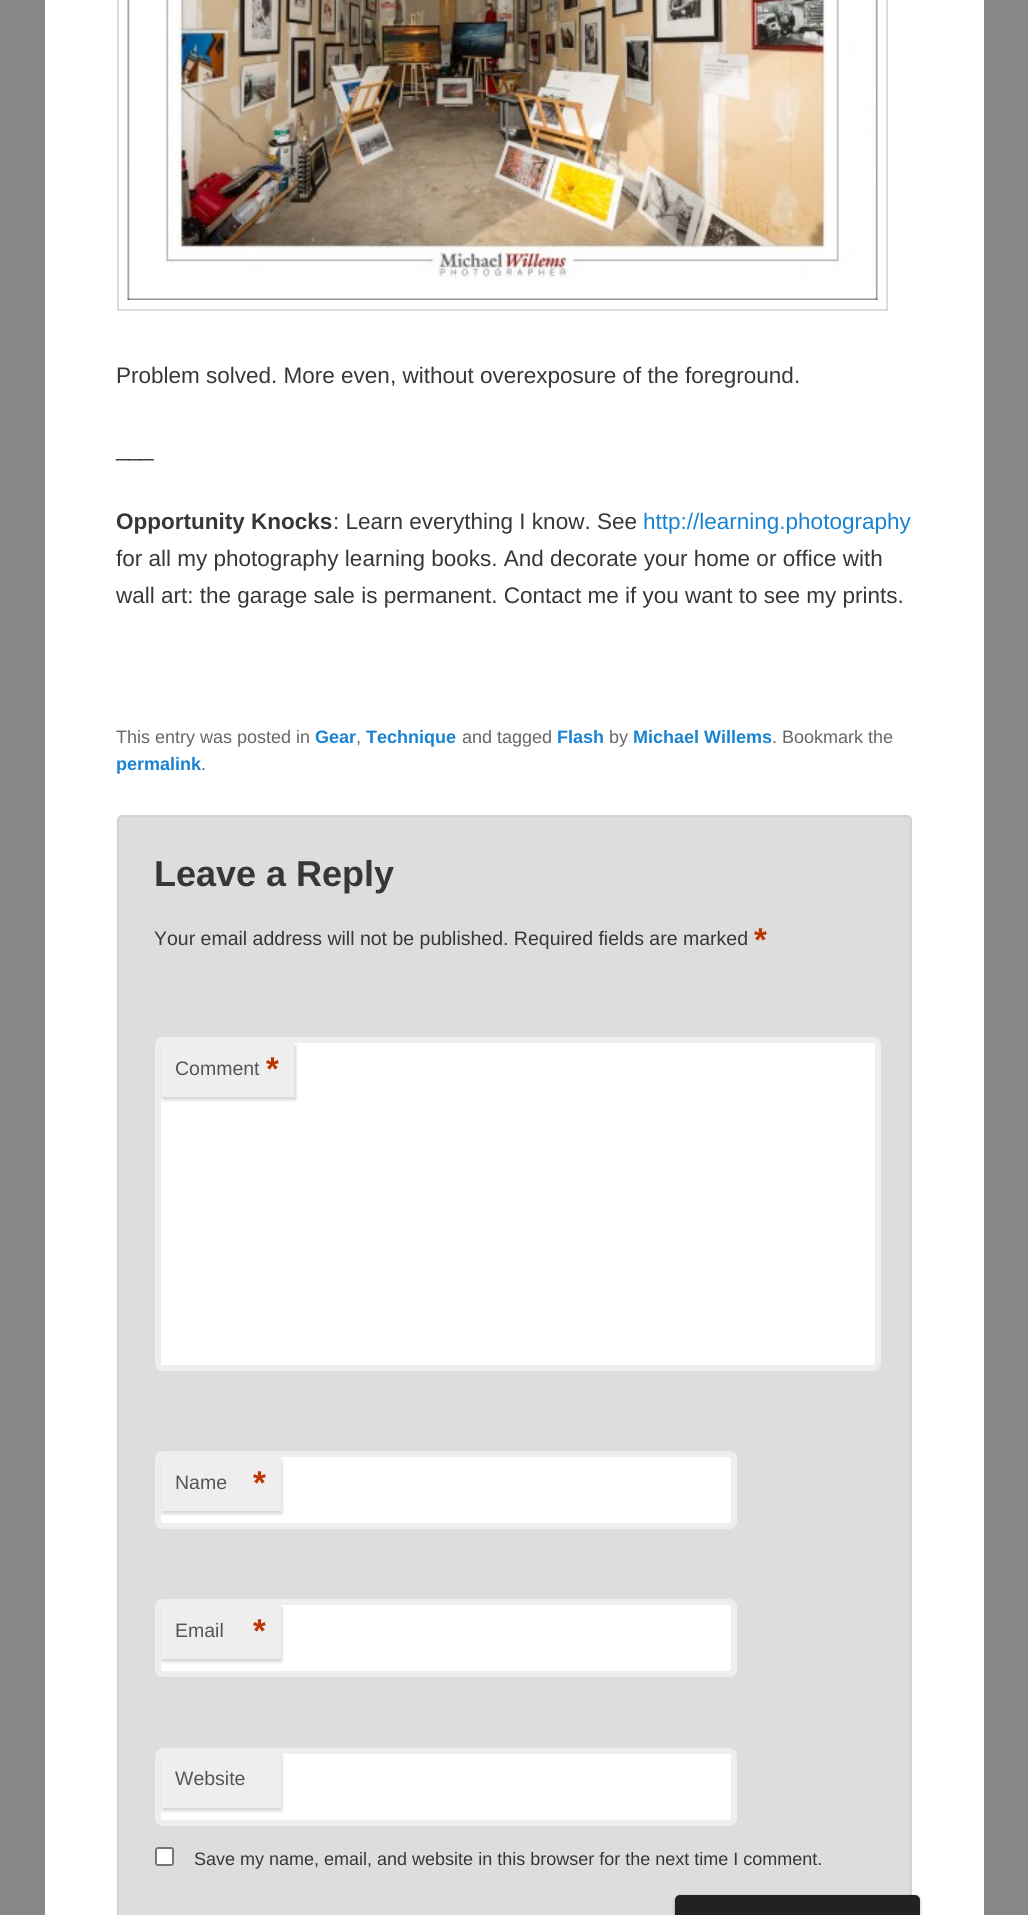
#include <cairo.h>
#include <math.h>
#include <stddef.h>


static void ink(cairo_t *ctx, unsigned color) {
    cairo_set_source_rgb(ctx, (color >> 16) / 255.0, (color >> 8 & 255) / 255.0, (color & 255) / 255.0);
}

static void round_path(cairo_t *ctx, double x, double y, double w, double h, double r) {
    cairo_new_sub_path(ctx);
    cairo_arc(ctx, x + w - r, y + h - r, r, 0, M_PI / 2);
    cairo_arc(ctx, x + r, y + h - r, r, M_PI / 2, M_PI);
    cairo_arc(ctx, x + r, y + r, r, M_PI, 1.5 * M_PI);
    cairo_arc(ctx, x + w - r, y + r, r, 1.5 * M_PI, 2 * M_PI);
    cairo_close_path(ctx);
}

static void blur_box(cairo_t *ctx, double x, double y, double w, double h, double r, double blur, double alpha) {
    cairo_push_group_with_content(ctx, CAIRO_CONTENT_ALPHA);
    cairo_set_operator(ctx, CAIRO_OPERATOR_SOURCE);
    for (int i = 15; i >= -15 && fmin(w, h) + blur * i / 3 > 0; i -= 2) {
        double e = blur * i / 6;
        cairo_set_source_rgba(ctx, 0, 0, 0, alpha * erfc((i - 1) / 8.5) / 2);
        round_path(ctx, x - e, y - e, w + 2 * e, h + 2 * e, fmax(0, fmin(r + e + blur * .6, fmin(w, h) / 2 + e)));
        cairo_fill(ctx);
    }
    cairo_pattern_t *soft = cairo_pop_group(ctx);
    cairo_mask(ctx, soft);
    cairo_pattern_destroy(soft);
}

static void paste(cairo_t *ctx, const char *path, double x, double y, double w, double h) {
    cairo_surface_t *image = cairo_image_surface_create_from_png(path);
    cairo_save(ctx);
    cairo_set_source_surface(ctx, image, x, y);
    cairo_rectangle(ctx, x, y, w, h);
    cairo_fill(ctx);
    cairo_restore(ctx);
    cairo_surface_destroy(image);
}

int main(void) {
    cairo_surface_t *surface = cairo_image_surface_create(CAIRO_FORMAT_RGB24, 1028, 1915);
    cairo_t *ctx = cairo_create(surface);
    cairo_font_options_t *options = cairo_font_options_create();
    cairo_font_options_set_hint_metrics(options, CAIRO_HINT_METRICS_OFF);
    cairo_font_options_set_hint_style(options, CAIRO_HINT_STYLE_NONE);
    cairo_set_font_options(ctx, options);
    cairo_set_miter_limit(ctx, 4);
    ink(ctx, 0x888888);
    cairo_paint(ctx);
    ink(ctx, 0xFFFFFF);
    cairo_rectangle(ctx, 45, 0, 939, 1915);
    cairo_fill(ctx);
    cairo_rectangle(ctx, 118, -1, 769, 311);
    ink(ctx, 0xDDDDDD);
    cairo_stroke(ctx);
    paste(ctx, "media/1.png", 127, 0, 751, 300);
    cairo_select_font_face(ctx, "Liberation Sans", CAIRO_FONT_SLANT_NORMAL, CAIRO_FONT_WEIGHT_NORMAL);
    cairo_set_font_size(ctx, 22.5);
    ink(ctx, 0x373737);
    cairo_move_to(ctx, 116, 383);
    cairo_show_text(ctx, "Problem solved. More even, without overexposure of the foreground.");
    cairo_move_to(ctx, 116, 456);
    cairo_show_text(ctx, "___");
    cairo_select_font_face(ctx, "Liberation Sans", CAIRO_FONT_SLANT_NORMAL, CAIRO_FONT_WEIGHT_BOLD);
    cairo_move_to(ctx, 116, 529);
    cairo_show_text(ctx, "Opportunity Knocks");
    cairo_select_font_face(ctx, "Liberation Sans", CAIRO_FONT_SLANT_NORMAL, CAIRO_FONT_WEIGHT_NORMAL);
    cairo_move_to(ctx, 333, 529);
    cairo_show_text(ctx, ": Learn everything I know. See");
    ink(ctx, 0x1982D1);
    cairo_move_to(ctx, 643, 529);
    cairo_show_text(ctx, "http://learning.photography");
    ink(ctx, 0x373737);
    cairo_move_to(ctx, 116, 566);
    cairo_show_text(ctx, "for all my photography learning books. And decorate your home or office with");
    cairo_move_to(ctx, 116, 603);
    cairo_show_text(ctx, "wall art: the garage sale is permanent. Contact me if you want to see my prints.");
    cairo_set_font_size(ctx, 18);
    ink(ctx, 0x666666);
    cairo_move_to(ctx, 116, 743);
    cairo_show_text(ctx, "This entry was posted in");
    cairo_select_font_face(ctx, "Liberation Sans", CAIRO_FONT_SLANT_NORMAL, CAIRO_FONT_WEIGHT_BOLD);
    ink(ctx, 0x1982D1);
    cairo_move_to(ctx, 315, 743);
    cairo_show_text(ctx, "Gear");
    cairo_select_font_face(ctx, "Liberation Sans", CAIRO_FONT_SLANT_NORMAL, CAIRO_FONT_WEIGHT_NORMAL);
    ink(ctx, 0x666666);
    cairo_move_to(ctx, 356, 743);
    cairo_show_text(ctx, ",");
    cairo_select_font_face(ctx, "Liberation Sans", CAIRO_FONT_SLANT_NORMAL, CAIRO_FONT_WEIGHT_BOLD);
    ink(ctx, 0x1982D1);
    cairo_move_to(ctx, 366, 743);
    cairo_show_text(ctx, "Technique");
    cairo_select_font_face(ctx, "Liberation Sans", CAIRO_FONT_SLANT_NORMAL, CAIRO_FONT_WEIGHT_NORMAL);
    ink(ctx, 0x666666);
    cairo_move_to(ctx, 462, 743);
    cairo_show_text(ctx, "and tagged");
    cairo_select_font_face(ctx, "Liberation Sans", CAIRO_FONT_SLANT_NORMAL, CAIRO_FONT_WEIGHT_BOLD);
    ink(ctx, 0x1982D1);
    cairo_move_to(ctx, 557, 743);
    cairo_show_text(ctx, "Flash");
    cairo_select_font_face(ctx, "Liberation Sans", CAIRO_FONT_SLANT_NORMAL, CAIRO_FONT_WEIGHT_NORMAL);
    ink(ctx, 0x666666);
    cairo_move_to(ctx, 609, 743);
    cairo_show_text(ctx, "by");
    cairo_select_font_face(ctx, "Liberation Sans", CAIRO_FONT_SLANT_NORMAL, CAIRO_FONT_WEIGHT_BOLD);
    ink(ctx, 0x1982D1);
    cairo_move_to(ctx, 633, 743);
    cairo_show_text(ctx, "Michael Willems");
    cairo_select_font_face(ctx, "Liberation Sans", CAIRO_FONT_SLANT_NORMAL, CAIRO_FONT_WEIGHT_NORMAL);
    ink(ctx, 0x666666);
    cairo_move_to(ctx, 772, 743);
    cairo_show_text(ctx, ". Bookmark the");
    cairo_select_font_face(ctx, "Liberation Sans", CAIRO_FONT_SLANT_NORMAL, CAIRO_FONT_WEIGHT_BOLD);
    ink(ctx, 0x1982D1);
    cairo_move_to(ctx, 116, 770);
    cairo_show_text(ctx, "permalink");
    cairo_select_font_face(ctx, "Liberation Sans", CAIRO_FONT_SLANT_NORMAL, CAIRO_FONT_WEIGHT_NORMAL);
    ink(ctx, 0x666666);
    cairo_move_to(ctx, 201, 770);
    cairo_show_text(ctx, ".");
    ink(ctx, 0xDDDDDD);
    round_path(ctx, 118, 816, 793, 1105, 4);
    cairo_fill_preserve(ctx);
    ink(ctx, 0xD3D3D3);
    cairo_stroke(ctx);
    cairo_select_font_face(ctx, "Liberation Sans", CAIRO_FONT_SLANT_NORMAL, CAIRO_FONT_WEIGHT_BOLD);
    cairo_set_font_size(ctx, 36);
    ink(ctx, 0x373737);
    cairo_move_to(ctx, 154, 886);
    cairo_show_text(ctx, "Leave a Reply");
    cairo_select_font_face(ctx, "Liberation Sans", CAIRO_FONT_SLANT_NORMAL, CAIRO_FONT_WEIGHT_NORMAL);
    cairo_set_font_size(ctx, 19.5);
    cairo_move_to(ctx, 154, 945);
    cairo_show_text(ctx, "Your email address will not be published. Required fields are marked");
    cairo_select_font_face(ctx, "Liberation Sans", CAIRO_FONT_SLANT_NORMAL, CAIRO_FONT_WEIGHT_BOLD);
    cairo_set_font_size(ctx, 33);
    ink(ctx, 0xBD3500);
    cairo_move_to(ctx, 754, 951);
    cairo_show_text(ctx, "*");
    ink(ctx, 0xFFFFFF);
    round_path(ctx, 158, 1040, 720, 328, 5);
    cairo_fill_preserve(ctx);
    ink(ctx, 0xEEEEEE);
    cairo_set_line_width(ctx, 6);
    cairo_stroke(ctx);
    ink(ctx, 0xCCCCCC);
    blur_box(ctx, 162, 1046, 134, 54, 0, 1.5, 0.8);
    ink(ctx, 0xEEEEEE);
    cairo_rectangle(ctx, 161, 1043, 133, 54);
    cairo_fill(ctx);
    cairo_select_font_face(ctx, "Liberation Sans", CAIRO_FONT_SLANT_NORMAL, CAIRO_FONT_WEIGHT_NORMAL);
    cairo_set_font_size(ctx, 19.5);
    ink(ctx, 0x555555);
    cairo_move_to(ctx, 175, 1075);
    cairo_show_text(ctx, "Comment");
    cairo_select_font_face(ctx, "Liberation Sans", CAIRO_FONT_SLANT_NORMAL, CAIRO_FONT_WEIGHT_BOLD);
    cairo_set_font_size(ctx, 33);
    ink(ctx, 0xBD3500);
    cairo_move_to(ctx, 266, 1080);
    cairo_show_text(ctx, "*");
    ink(ctx, 0xFFFFFF);
    round_path(ctx, 158, 1454, 576, 72, 5);
    cairo_fill_preserve(ctx);
    ink(ctx, 0xEEEEEE);
    cairo_stroke(ctx);
    ink(ctx, 0xCCCCCC);
    blur_box(ctx, 162, 1460, 120, 54, 0, 1.5, 0.8);
    ink(ctx, 0xEEEEEE);
    cairo_rectangle(ctx, 161, 1457, 120, 54);
    cairo_fill(ctx);
    cairo_select_font_face(ctx, "Liberation Sans", CAIRO_FONT_SLANT_NORMAL, CAIRO_FONT_WEIGHT_NORMAL);
    cairo_set_font_size(ctx, 19.5);
    ink(ctx, 0x555555);
    cairo_move_to(ctx, 175, 1489);
    cairo_show_text(ctx, "Name");
    cairo_select_font_face(ctx, "Liberation Sans", CAIRO_FONT_SLANT_NORMAL, CAIRO_FONT_WEIGHT_BOLD);
    cairo_set_font_size(ctx, 33);
    ink(ctx, 0xBD3500);
    cairo_move_to(ctx, 253, 1494);
    cairo_show_text(ctx, "*");
    ink(ctx, 0xFFFFFF);
    round_path(ctx, 158, 1602, 576, 72, 5);
    cairo_fill_preserve(ctx);
    ink(ctx, 0xEEEEEE);
    cairo_stroke(ctx);
    ink(ctx, 0xCCCCCC);
    blur_box(ctx, 162, 1607, 120, 55, 0, 1.5, 0.8);
    ink(ctx, 0xEEEEEE);
    cairo_rectangle(ctx, 161, 1605, 120, 54);
    cairo_fill(ctx);
    cairo_select_font_face(ctx, "Liberation Sans", CAIRO_FONT_SLANT_NORMAL, CAIRO_FONT_WEIGHT_NORMAL);
    cairo_set_font_size(ctx, 19.5);
    ink(ctx, 0x555555);
    cairo_move_to(ctx, 175, 1637);
    cairo_show_text(ctx, "Email");
    cairo_select_font_face(ctx, "Liberation Sans", CAIRO_FONT_SLANT_NORMAL, CAIRO_FONT_WEIGHT_BOLD);
    cairo_set_font_size(ctx, 33);
    ink(ctx, 0xBD3500);
    cairo_move_to(ctx, 253, 1642);
    cairo_show_text(ctx, "*");
    ink(ctx, 0xFFFFFF);
    round_path(ctx, 158, 1751, 576, 72, 5);
    cairo_fill_preserve(ctx);
    ink(ctx, 0xEEEEEE);
    cairo_stroke(ctx);
    ink(ctx, 0xCCCCCC);
    blur_box(ctx, 162, 1755, 120, 56, 0, 1.5, 0.8);
    ink(ctx, 0xEEEEEE);
    cairo_rectangle(ctx, 161, 1753, 120, 55);
    cairo_fill(ctx);
    cairo_select_font_face(ctx, "Liberation Sans", CAIRO_FONT_SLANT_NORMAL, CAIRO_FONT_WEIGHT_NORMAL);
    cairo_set_font_size(ctx, 19.5);
    ink(ctx, 0x555555);
    cairo_move_to(ctx, 175, 1785);
    cairo_show_text(ctx, "Website");
    ink(ctx, 0xFFFFFF);
    round_path(ctx, 156, 1848, 17, 17, 2);
    cairo_fill_preserve(ctx);
    ink(ctx, 0x767676);
    cairo_set_line_width(ctx, 2);
    cairo_stroke(ctx);
    cairo_set_font_size(ctx, 18);
    ink(ctx, 0x373737);
    cairo_move_to(ctx, 194, 1865);
    cairo_show_text(ctx, "Save my name, email, and website in this browser for the next time I comment.");
    ink(ctx, 0x000000);
    blur_box(ctx, 675, 1896, 245, 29, 5, 1.5, 0.3);
    ink(ctx, 0x222222);
    round_path(ctx, 675, 1895, 245, 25, 5);
    cairo_fill(ctx);
    cairo_surface_write_to_png(surface, "image.png");
    cairo_font_options_destroy(options);
    cairo_destroy(ctx);
    cairo_surface_destroy(surface);
    return 0;
}
